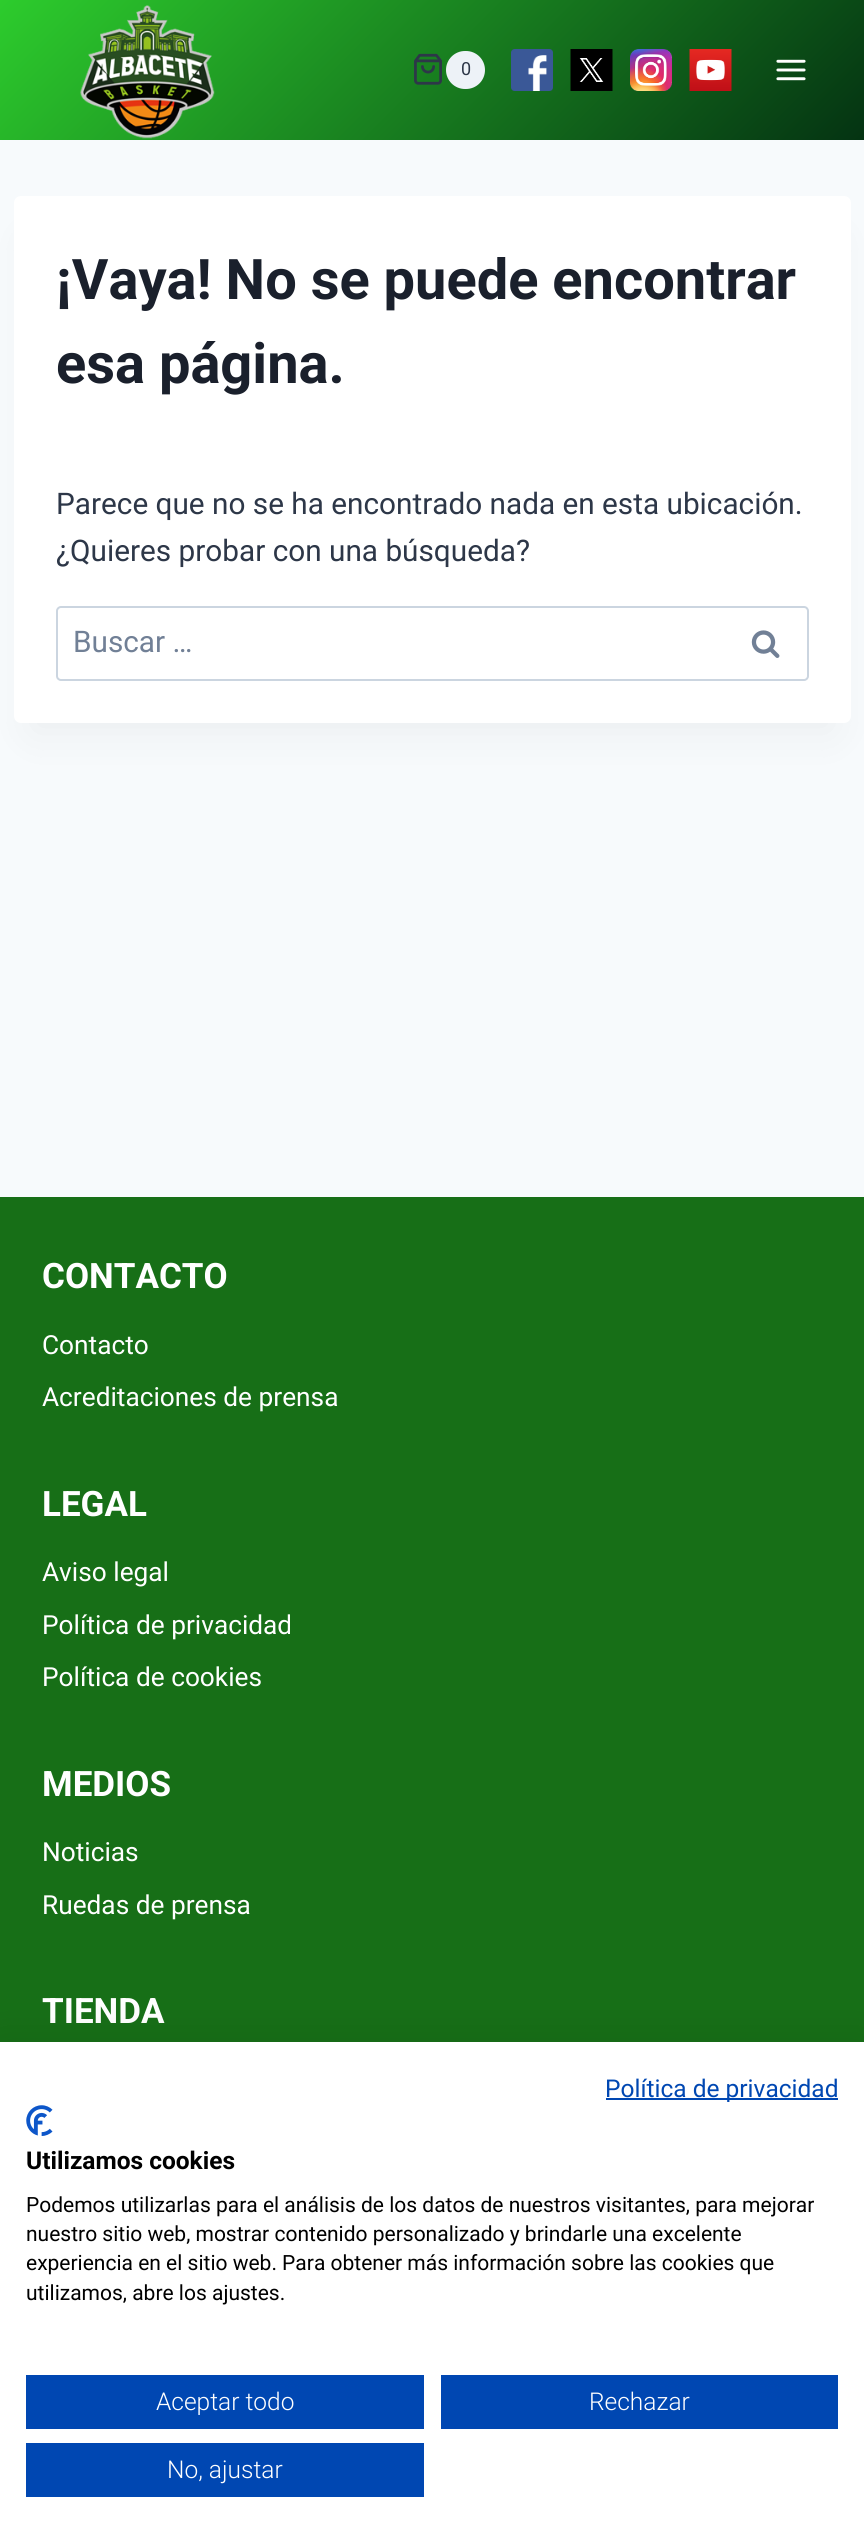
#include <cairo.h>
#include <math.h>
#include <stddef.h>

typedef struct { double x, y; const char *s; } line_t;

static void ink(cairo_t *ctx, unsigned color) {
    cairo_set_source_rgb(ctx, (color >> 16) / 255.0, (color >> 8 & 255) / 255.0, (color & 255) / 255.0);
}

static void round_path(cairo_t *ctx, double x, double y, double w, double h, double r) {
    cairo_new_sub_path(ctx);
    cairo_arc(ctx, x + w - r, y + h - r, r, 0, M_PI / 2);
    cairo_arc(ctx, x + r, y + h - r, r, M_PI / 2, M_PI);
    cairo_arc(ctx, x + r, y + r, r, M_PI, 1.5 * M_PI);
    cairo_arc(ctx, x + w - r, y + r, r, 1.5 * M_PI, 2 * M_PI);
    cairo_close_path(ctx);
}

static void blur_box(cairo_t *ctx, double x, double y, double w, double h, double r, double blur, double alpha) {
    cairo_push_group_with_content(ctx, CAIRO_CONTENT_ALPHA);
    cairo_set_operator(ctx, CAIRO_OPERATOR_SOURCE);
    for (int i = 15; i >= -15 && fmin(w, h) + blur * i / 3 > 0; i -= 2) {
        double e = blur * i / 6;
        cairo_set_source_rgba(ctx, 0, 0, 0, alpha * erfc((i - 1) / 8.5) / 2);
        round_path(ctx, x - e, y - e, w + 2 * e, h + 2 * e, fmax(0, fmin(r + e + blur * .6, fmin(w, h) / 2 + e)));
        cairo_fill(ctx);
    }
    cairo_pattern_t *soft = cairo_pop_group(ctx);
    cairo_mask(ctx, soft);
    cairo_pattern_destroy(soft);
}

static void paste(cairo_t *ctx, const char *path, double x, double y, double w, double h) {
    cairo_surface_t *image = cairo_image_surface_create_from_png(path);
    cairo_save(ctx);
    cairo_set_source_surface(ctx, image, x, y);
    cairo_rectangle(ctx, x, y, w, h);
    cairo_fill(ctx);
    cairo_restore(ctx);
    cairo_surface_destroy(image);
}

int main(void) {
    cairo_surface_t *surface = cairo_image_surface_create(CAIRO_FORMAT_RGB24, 864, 2544);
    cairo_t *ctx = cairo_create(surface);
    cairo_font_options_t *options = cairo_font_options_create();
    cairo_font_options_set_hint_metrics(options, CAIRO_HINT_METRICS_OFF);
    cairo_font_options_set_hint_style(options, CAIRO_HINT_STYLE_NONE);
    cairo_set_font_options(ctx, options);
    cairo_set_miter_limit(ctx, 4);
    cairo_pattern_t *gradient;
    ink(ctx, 0xF7FAFC);
    cairo_paint(ctx);
    gradient = cairo_pattern_create_linear(181, -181, 683, 321);
    cairo_pattern_add_color_stop_rgba(gradient, 0, 0.176, 0.8, 0.176, 1);
    cairo_pattern_add_color_stop_rgba(gradient, 1, 0.016, 0.2, 0.071, 1);
    cairo_set_source(ctx, gradient);
    cairo_pattern_destroy(gradient);
    cairo_rectangle(ctx, 0, 0, 864, 140);
    cairo_fill(ctx);
    paste(ctx, "media/1.png", 80, 5, 135, 134);
    paste(ctx, "media/2.png", 414, 53, 28, 32);
    ink(ctx, 0xEDF2F7);
    round_path(ctx, 446, 51, 39, 38, 19);
    cairo_fill(ctx);
    cairo_select_font_face(ctx, "Roboto", CAIRO_FONT_SLANT_NORMAL, CAIRO_FONT_WEIGHT_NORMAL);
    cairo_set_font_size(ctx, 18);
    ink(ctx, 0x2D3748);
    cairo_move_to(ctx, 461, 75);
    cairo_show_text(ctx, "0");
    paste(ctx, "media/3.png", 511, 49, 42, 42);
    paste(ctx, "media/4.png", 570, 49, 43, 42);
    paste(ctx, "media/5.png", 630, 49, 42, 42);
    paste(ctx, "media/6.png", 689, 49, 43, 42);
    paste(ctx, "media/7.png", 776, 59, 30, 22);
    ink(ctx, 0x000000);
    blur_box(ctx, 32, 240, 801, 492, 0, 22, 0.05);
    ink(ctx, 0xFFFFFF);
    round_path(ctx, 14, 196, 837, 527, 7);
    cairo_fill(ctx);
    cairo_select_font_face(ctx, "Roboto", CAIRO_FONT_SLANT_NORMAL, CAIRO_FONT_WEIGHT_BOLD);
    cairo_set_font_size(ctx, 56);
    ink(ctx, 0x1A202C);
    cairo_move_to(ctx, 56, 299);
    cairo_show_text(ctx, "¡Vaya! No se puede encontrar");
    cairo_move_to(ctx, 56, 383);
    cairo_show_text(ctx, "esa página.");
    cairo_select_font_face(ctx, "Roboto", CAIRO_FONT_SLANT_NORMAL, CAIRO_FONT_WEIGHT_NORMAL);
    cairo_set_font_size(ctx, 29.75);
    ink(ctx, 0x2D3748);
    cairo_move_to(ctx, 56, 514);
    cairo_show_text(ctx, "Parece que no se ha encontrado nada en esta ubicación.");
    cairo_move_to(ctx, 56, 561);
    cairo_show_text(ctx, "¿Quieres probar con una búsqueda?");
    round_path(ctx, 57, 607, 751, 73, 4);
    ink(ctx, 0xCBD5E0);
    cairo_stroke(ctx);
    ink(ctx, 0x718096);
    cairo_move_to(ctx, 73, 652);
    cairo_show_text(ctx, "Buscar …");
    paste(ctx, "media/8.png", 751, 630, 29, 28);
    ink(ctx, 0x176F17);
    cairo_rectangle(ctx, 0, 1197, 864, 845);
    cairo_fill(ctx);
    cairo_select_font_face(ctx, "Roboto", CAIRO_FONT_SLANT_NORMAL, CAIRO_FONT_WEIGHT_BOLD);
    cairo_set_font_size(ctx, 35);
    ink(ctx, 0xFFFFFF);
    cairo_move_to(ctx, 42, 1288);
    cairo_show_text(ctx, "CONTACTO");
    cairo_select_font_face(ctx, "Roboto", CAIRO_FONT_SLANT_NORMAL, CAIRO_FONT_WEIGHT_NORMAL);
    cairo_set_font_size(ctx, 26.25);
    cairo_move_to(ctx, 42, 1354);
    cairo_show_text(ctx, "Contacto");
    cairo_move_to(ctx, 42, 1406);
    cairo_show_text(ctx, "Acreditaciones de prensa");
    cairo_select_font_face(ctx, "Roboto", CAIRO_FONT_SLANT_NORMAL, CAIRO_FONT_WEIGHT_BOLD);
    cairo_set_font_size(ctx, 35);
    cairo_move_to(ctx, 42, 1516);
    cairo_show_text(ctx, "LEGAL");
    cairo_select_font_face(ctx, "Roboto", CAIRO_FONT_SLANT_NORMAL, CAIRO_FONT_WEIGHT_NORMAL);
    cairo_set_font_size(ctx, 26.25);
    {
        static const line_t items[] = {
            {42, 1581, "Aviso legal"},
            {42, 1634, "Política de privacidad"},
            {42, 1686, "Política de cookies"},
        };
        for (size_t i = 0; i < sizeof items / sizeof *items; i++) {
            cairo_move_to(ctx, items[i].x, items[i].y);
            cairo_show_text(ctx, items[i].s);
        }
    }
    cairo_select_font_face(ctx, "Roboto", CAIRO_FONT_SLANT_NORMAL, CAIRO_FONT_WEIGHT_BOLD);
    cairo_set_font_size(ctx, 35);
    cairo_move_to(ctx, 42, 1796);
    cairo_show_text(ctx, "MEDIOS");
    cairo_select_font_face(ctx, "Roboto", CAIRO_FONT_SLANT_NORMAL, CAIRO_FONT_WEIGHT_NORMAL);
    cairo_set_font_size(ctx, 26.25);
    cairo_move_to(ctx, 42, 1861);
    cairo_show_text(ctx, "Noticias");
    cairo_move_to(ctx, 42, 1914);
    cairo_show_text(ctx, "Ruedas de prensa");
    cairo_select_font_face(ctx, "Roboto", CAIRO_FONT_SLANT_NORMAL, CAIRO_FONT_WEIGHT_BOLD);
    cairo_set_font_size(ctx, 35);
    cairo_move_to(ctx, 42, 2023);
    cairo_show_text(ctx, "TIENDA");
    ink(ctx, 0x000000);
    blur_box(ctx, 0, 2042, 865, 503, 0, 21, 0.1);
    ink(ctx, 0xFFFFFF);
    cairo_rectangle(ctx, 0, 2042, 864, 502);
    cairo_fill(ctx);
    ink(ctx, 0x0047B2);
    cairo_rectangle(ctx, 606, 2098, 232, 2);
    cairo_fill(ctx);
    cairo_select_font_face(ctx, "Roboto", CAIRO_FONT_SLANT_NORMAL, CAIRO_FONT_WEIGHT_NORMAL);
    cairo_set_font_size(ctx, 24.5);
    cairo_move_to(ctx, 605, 2097);
    cairo_show_text(ctx, "Política de privacidad");
    paste(ctx, "media/9.png", 26, 2105, 27, 31);
    cairo_select_font_face(ctx, "Roboto", CAIRO_FONT_SLANT_NORMAL, CAIRO_FONT_WEIGHT_BOLD);
    ink(ctx, 0x000000);
    cairo_move_to(ctx, 26, 2169);
    cairo_show_text(ctx, "Utilizamos cookies");
    cairo_select_font_face(ctx, "Roboto", CAIRO_FONT_SLANT_NORMAL, CAIRO_FONT_WEIGHT_NORMAL);
    cairo_set_font_size(ctx, 21);
    {
        static const line_t items[] = {
            {26, 2212, "Podemos utilizarlas para el análisis de los datos de nuestros visitantes, para mejorar"},
            {26, 2241, "nuestro sitio web, mostrar contenido personalizado y brindarle una excelente"},
            {26, 2270, "experiencia en el sitio web. Para obtener más información sobre las cookies que"},
            {26, 2300, "utilizamos, abre los ajustes."},
        };
        for (size_t i = 0; i < sizeof items / sizeof *items; i++) {
            cairo_move_to(ctx, items[i].x, items[i].y);
            cairo_show_text(ctx, items[i].s);
        }
    }
    ink(ctx, 0x0047B2);
    cairo_rectangle(ctx, 26, 2375, 398, 54);
    cairo_fill(ctx);
    cairo_select_font_face(ctx, "Roboto Light", CAIRO_FONT_SLANT_NORMAL, CAIRO_FONT_WEIGHT_NORMAL);
    cairo_set_font_size(ctx, 24.5);
    ink(ctx, 0xFFFFFF);
    cairo_move_to(ctx, 156, 2410);
    cairo_show_text(ctx, "Aceptar todo");
    ink(ctx, 0x0047B2);
    cairo_rectangle(ctx, 441, 2375, 397, 54);
    cairo_fill(ctx);
    ink(ctx, 0xFFFFFF);
    cairo_move_to(ctx, 589, 2410);
    cairo_show_text(ctx, "Rechazar");
    ink(ctx, 0x0047B2);
    cairo_rectangle(ctx, 26, 2443, 398, 54);
    cairo_fill(ctx);
    ink(ctx, 0xFFFFFF);
    cairo_move_to(ctx, 167, 2478);
    cairo_show_text(ctx, "No, ajustar");
    cairo_surface_write_to_png(surface, "image.png");
    cairo_font_options_destroy(options);
    cairo_destroy(ctx);
    cairo_surface_destroy(surface);
    return 0;
}
